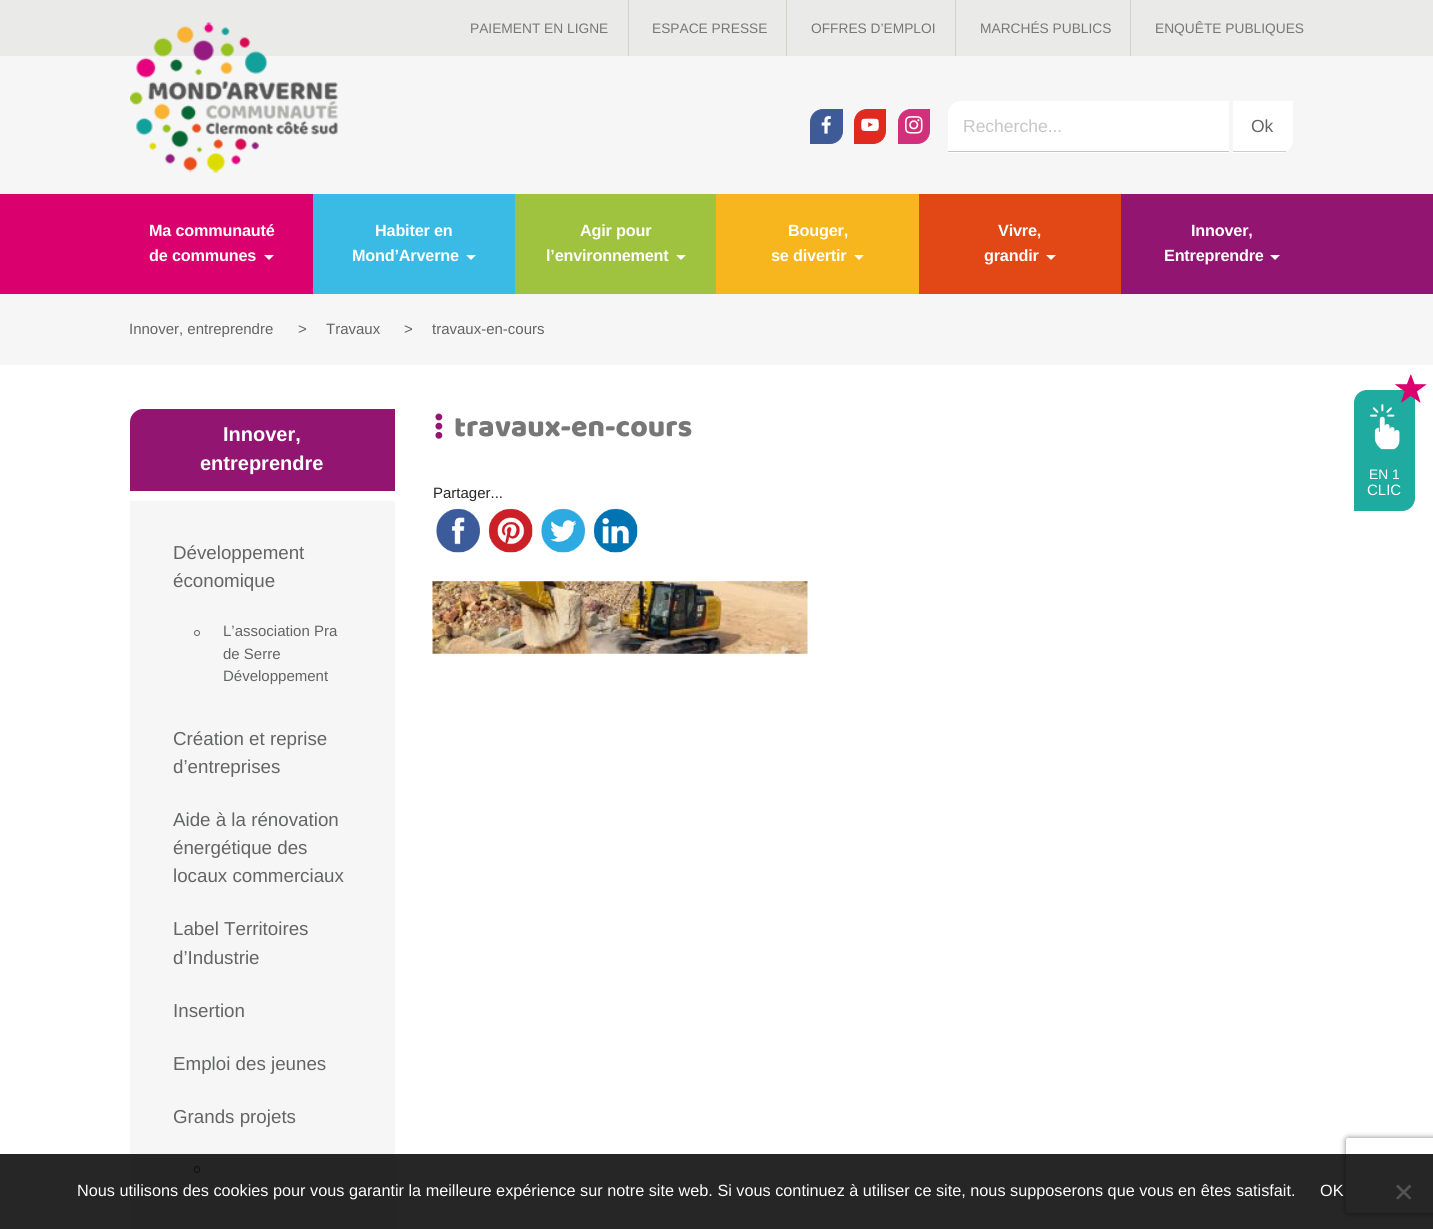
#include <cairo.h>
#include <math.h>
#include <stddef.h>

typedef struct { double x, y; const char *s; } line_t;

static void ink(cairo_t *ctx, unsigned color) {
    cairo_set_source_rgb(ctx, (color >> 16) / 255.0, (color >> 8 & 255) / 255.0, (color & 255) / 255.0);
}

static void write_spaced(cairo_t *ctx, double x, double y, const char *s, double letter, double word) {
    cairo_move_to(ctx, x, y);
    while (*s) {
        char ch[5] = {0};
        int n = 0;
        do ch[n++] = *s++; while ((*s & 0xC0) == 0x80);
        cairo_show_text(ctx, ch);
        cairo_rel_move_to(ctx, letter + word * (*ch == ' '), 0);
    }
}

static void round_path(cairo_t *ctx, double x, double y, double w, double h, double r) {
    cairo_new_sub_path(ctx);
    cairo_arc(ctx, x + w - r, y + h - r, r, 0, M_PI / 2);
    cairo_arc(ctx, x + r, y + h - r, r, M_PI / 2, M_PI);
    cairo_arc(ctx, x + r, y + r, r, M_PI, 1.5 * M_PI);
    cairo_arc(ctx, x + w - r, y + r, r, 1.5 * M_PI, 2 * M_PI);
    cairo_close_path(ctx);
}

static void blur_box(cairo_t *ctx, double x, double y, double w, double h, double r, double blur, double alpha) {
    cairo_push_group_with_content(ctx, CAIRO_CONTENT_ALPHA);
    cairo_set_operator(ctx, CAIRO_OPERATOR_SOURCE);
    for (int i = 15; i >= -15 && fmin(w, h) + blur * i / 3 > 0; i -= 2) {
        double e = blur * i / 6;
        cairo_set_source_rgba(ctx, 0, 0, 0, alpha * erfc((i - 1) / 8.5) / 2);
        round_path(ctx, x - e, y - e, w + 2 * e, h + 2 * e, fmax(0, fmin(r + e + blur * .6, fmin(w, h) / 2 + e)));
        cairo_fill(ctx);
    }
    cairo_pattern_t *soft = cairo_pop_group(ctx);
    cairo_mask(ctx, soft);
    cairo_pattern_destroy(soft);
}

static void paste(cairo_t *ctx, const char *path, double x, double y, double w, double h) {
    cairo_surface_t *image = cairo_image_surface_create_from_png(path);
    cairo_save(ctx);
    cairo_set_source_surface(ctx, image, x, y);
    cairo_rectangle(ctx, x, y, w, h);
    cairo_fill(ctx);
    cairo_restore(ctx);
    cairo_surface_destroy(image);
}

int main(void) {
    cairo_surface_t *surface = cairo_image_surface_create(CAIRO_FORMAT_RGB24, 1433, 1229);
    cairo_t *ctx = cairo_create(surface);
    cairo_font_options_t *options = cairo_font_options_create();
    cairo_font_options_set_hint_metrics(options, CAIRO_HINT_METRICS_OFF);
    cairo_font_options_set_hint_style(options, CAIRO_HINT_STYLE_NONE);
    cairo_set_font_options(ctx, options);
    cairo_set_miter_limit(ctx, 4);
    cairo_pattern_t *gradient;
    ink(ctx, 0xFFFFFF);
    cairo_paint(ctx);
    ink(ctx, 0xEAEAE8);
    cairo_rectangle(ctx, 0, 0, 1433, 56);
    cairo_fill(ctx);
    ink(ctx, 0xF6F6F6);
    cairo_rectangle(ctx, 0, 56, 1433, 138);
    cairo_fill(ctx);
    paste(ctx, "media/1.png", 130, 22, 208, 151);
    ink(ctx, 0xD3D3C7);
    cairo_rectangle(ctx, 628, 0, 1, 56);
    cairo_fill(ctx);
    cairo_select_font_face(ctx, "Liberation Sans", CAIRO_FONT_SLANT_NORMAL, CAIRO_FONT_WEIGHT_NORMAL);
    cairo_set_font_size(ctx, 13.75);
    ink(ctx, 0x777777);
    cairo_move_to(ctx, 470, 33);
    cairo_show_text(ctx, "PAIEMENT EN LIGNE");
    ink(ctx, 0xD3D3C7);
    cairo_rectangle(ctx, 786, 0, 1, 56);
    cairo_fill(ctx);
    ink(ctx, 0x777777);
    cairo_move_to(ctx, 652, 33);
    cairo_show_text(ctx, "ESPACE PRESSE");
    ink(ctx, 0xD3D3C7);
    cairo_rectangle(ctx, 955, 0, 1, 56);
    cairo_fill(ctx);
    ink(ctx, 0x777777);
    cairo_move_to(ctx, 811, 33);
    cairo_show_text(ctx, "OFFRES D’EMPLOI");
    ink(ctx, 0xD3D3C7);
    cairo_rectangle(ctx, 1130, 0, 1, 56);
    cairo_fill(ctx);
    ink(ctx, 0x777777);
    cairo_move_to(ctx, 980, 33);
    cairo_show_text(ctx, "MARCHÉS PUBLICS");
    cairo_move_to(ctx, 1155, 33);
    cairo_show_text(ctx, "ENQUÊTE PUBLIQUES");
    ink(ctx, 0x3E5B98);
    cairo_new_path(ctx);
    cairo_move_to(ctx, 823, 109.5);
    cairo_line_to(ctx, 842.5, 109.5);
    cairo_line_to(ctx, 842.5, 131);
    cairo_curve_to(ctx, 842.5, 138, 837, 143.5, 830, 143.5);
    cairo_line_to(ctx, 810.5, 143.5);
    cairo_line_to(ctx, 810.5, 122);
    cairo_curve_to(ctx, 810.5, 115, 816, 109.5, 823, 109.5);
    cairo_close_path(ctx);
    cairo_fill_preserve(ctx);
    cairo_set_line_width(ctx, 1);
    cairo_stroke(ctx);
    ink(ctx, 0xE02A20);
    cairo_new_path(ctx);
    cairo_move_to(ctx, 867, 109.5);
    cairo_line_to(ctx, 885.5, 109.5);
    cairo_line_to(ctx, 885.5, 131);
    cairo_curve_to(ctx, 885.5, 138, 880, 143.5, 873, 143.5);
    cairo_line_to(ctx, 854.5, 143.5);
    cairo_line_to(ctx, 854.5, 122);
    cairo_curve_to(ctx, 854.5, 115, 860, 109.5, 867, 109.5);
    cairo_close_path(ctx);
    cairo_fill_preserve(ctx);
    cairo_stroke(ctx);
    ink(ctx, 0xD3307C);
    cairo_new_path(ctx);
    cairo_move_to(ctx, 911, 109.5);
    cairo_line_to(ctx, 929.5, 109.5);
    cairo_line_to(ctx, 929.5, 131);
    cairo_curve_to(ctx, 929.5, 138, 924, 143.5, 917, 143.5);
    cairo_line_to(ctx, 898.5, 143.5);
    cairo_line_to(ctx, 898.5, 122);
    cairo_curve_to(ctx, 898.5, 115, 904, 109.5, 911, 109.5);
    cairo_close_path(ctx);
    cairo_fill_preserve(ctx);
    cairo_stroke(ctx);
    paste(ctx, "media/2.png", 821, 116, 10, 18);
    paste(ctx, "media/3.png", 861, 118, 18, 13);
    paste(ctx, "media/4.png", 905, 116, 18, 18);
    ink(ctx, 0xFFFFFF);
    cairo_new_path(ctx);
    cairo_move_to(ctx, 961, 101);
    cairo_line_to(ctx, 1229, 101);
    cairo_line_to(ctx, 1229, 153);
    cairo_line_to(ctx, 948, 153);
    cairo_line_to(ctx, 948, 114);
    cairo_curve_to(ctx, 948, 107, 954, 101, 961, 101);
    cairo_close_path(ctx);
    cairo_fill(ctx);
    ink(ctx, 0xC6C6C6);
    cairo_rectangle(ctx, 948, 151, 281, 1);
    cairo_fill(ctx);
    cairo_set_font_size(ctx, 17.5);
    cairo_move_to(ctx, 963, 132);
    cairo_show_text(ctx, "Recherche...");
    ink(ctx, 0xFFFFFF);
    cairo_new_path(ctx);
    cairo_move_to(ctx, 1233, 101);
    cairo_line_to(ctx, 1293, 101);
    cairo_line_to(ctx, 1293, 140);
    cairo_curve_to(ctx, 1293, 147, 1287, 153, 1280, 153);
    cairo_line_to(ctx, 1233, 153);
    cairo_close_path(ctx);
    cairo_fill(ctx);
    ink(ctx, 0xCCCCCC);
    cairo_rectangle(ctx, 1233, 151, 53, 1);
    cairo_fill(ctx);
    ink(ctx, 0x636465);
    cairo_move_to(ctx, 1251, 132);
    cairo_show_text(ctx, "Ok");
    gradient = cairo_pattern_create_linear(0, 279, 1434, 279);
    cairo_pattern_add_color_stop_rgba(gradient, 0, 0.855, 0, 0.427, 1);
    cairo_pattern_add_color_stop_rgba(gradient, 0.49, 0.855, 0, 0.427, 1);
    cairo_pattern_add_color_stop_rgba(gradient, 0.5, 0.573, 0.082, 0.447, 1);
    cairo_pattern_add_color_stop_rgba(gradient, 1, 0.573, 0.082, 0.447, 1);
    cairo_set_source(ctx, gradient);
    cairo_pattern_destroy(gradient);
    cairo_rectangle(ctx, 0, 194, 1433, 100);
    cairo_fill(ctx);
    cairo_select_font_face(ctx, "Liberation Sans", CAIRO_FONT_SLANT_NORMAL, CAIRO_FONT_WEIGHT_BOLD);
    cairo_set_font_size(ctx, 16.25);
    ink(ctx, 0xFFFFFF);
    write_spaced(ctx, 149, 236, "Ma communauté", -0.2, 0);
    write_spaced(ctx, 149, 261, "de communes", -0.2, 0);
    cairo_new_path(ctx);
    cairo_move_to(ctx, 264, 255);
    cairo_line_to(ctx, 274, 255);
    cairo_line_to(ctx, 269, 260);
    cairo_close_path(ctx);
    cairo_fill(ctx);
    ink(ctx, 0x39BBE5);
    cairo_rectangle(ctx, 313, 194, 202, 100);
    cairo_fill(ctx);
    ink(ctx, 0xFFFFFF);
    write_spaced(ctx, 375, 236, "Habiter en", -0.2, 0);
    write_spaced(ctx, 352, 261, "Mond’Arverne", -0.2, 0);
    cairo_new_path(ctx);
    cairo_move_to(ctx, 466, 255);
    cairo_line_to(ctx, 476, 255);
    cairo_line_to(ctx, 471, 260);
    cairo_close_path(ctx);
    cairo_fill(ctx);
    ink(ctx, 0x9FC33E);
    cairo_rectangle(ctx, 515, 194, 201, 100);
    cairo_fill(ctx);
    ink(ctx, 0xFFFFFF);
    write_spaced(ctx, 580, 236, "Agir pour", -0.2, 0);
    write_spaced(ctx, 546, 261, "l’environnement", -0.2, 0);
    cairo_new_path(ctx);
    cairo_move_to(ctx, 676, 255);
    cairo_line_to(ctx, 686, 255);
    cairo_line_to(ctx, 681, 260);
    cairo_close_path(ctx);
    cairo_fill(ctx);
    ink(ctx, 0xF7B61D);
    cairo_rectangle(ctx, 716, 194, 203, 100);
    cairo_fill(ctx);
    ink(ctx, 0xFFFFFF);
    write_spaced(ctx, 788, 236, "Bouger,", -0.2, 0);
    write_spaced(ctx, 771, 261, "se divertir", -0.2, 0);
    cairo_new_path(ctx);
    cairo_move_to(ctx, 854, 255);
    cairo_line_to(ctx, 864, 255);
    cairo_line_to(ctx, 859, 260);
    cairo_close_path(ctx);
    cairo_fill(ctx);
    ink(ctx, 0xE14815);
    cairo_rectangle(ctx, 919, 194, 202, 100);
    cairo_fill(ctx);
    ink(ctx, 0xFFFFFF);
    write_spaced(ctx, 998, 236, "Vivre,", -0.2, 0);
    write_spaced(ctx, 984, 261, "grandir", -0.2, 0);
    cairo_new_path(ctx);
    cairo_move_to(ctx, 1046, 255);
    cairo_line_to(ctx, 1056, 255);
    cairo_line_to(ctx, 1051, 260);
    cairo_close_path(ctx);
    cairo_fill(ctx);
    write_spaced(ctx, 1191, 236, "Innover,", -0.2, 0);
    write_spaced(ctx, 1164, 261, "Entreprendre", -0.2, 0);
    cairo_new_path(ctx);
    cairo_move_to(ctx, 1270, 255);
    cairo_line_to(ctx, 1280, 255);
    cairo_line_to(ctx, 1275, 260);
    cairo_close_path(ctx);
    cairo_fill(ctx);
    ink(ctx, 0xF6F6F6);
    cairo_rectangle(ctx, 0, 294, 1433, 71);
    cairo_fill(ctx);
    cairo_select_font_face(ctx, "Liberation Sans", CAIRO_FONT_SLANT_NORMAL, CAIRO_FONT_WEIGHT_NORMAL);
    cairo_set_font_size(ctx, 15);
    ink(ctx, 0x636465);
    {
        static const line_t items[] = {
            {129, 334, "Innover, entreprendre"},
            {298, 334, ">"},
            {326, 334, "Travaux"},
            {404, 334, ">"},
            {432, 334, "travaux-en-cours"},
        };
        for (size_t i = 0; i < sizeof items / sizeof *items; i++) {
            cairo_move_to(ctx, items[i].x, items[i].y);
            cairo_show_text(ctx, items[i].s);
        }
    }
    ink(ctx, 0x921572);
    cairo_new_path(ctx);
    cairo_move_to(ctx, 143, 409);
    cairo_line_to(ctx, 395, 409);
    cairo_line_to(ctx, 395, 501);
    cairo_line_to(ctx, 130, 501);
    cairo_line_to(ctx, 130, 422);
    cairo_curve_to(ctx, 130, 415, 136, 409, 143, 409);
    cairo_close_path(ctx);
    cairo_fill(ctx);
    ink(ctx, 0xFFFFFF);
    cairo_rectangle(ctx, 130, 491, 265, 10);
    cairo_fill(ctx);
    cairo_select_font_face(ctx, "Liberation Sans", CAIRO_FONT_SLANT_NORMAL, CAIRO_FONT_WEIGHT_BOLD);
    cairo_set_font_size(ctx, 20);
    cairo_move_to(ctx, 223, 441);
    cairo_show_text(ctx, "Innover,");
    cairo_move_to(ctx, 200, 470);
    cairo_show_text(ctx, "entreprendre");
    ink(ctx, 0xF6F6F6);
    cairo_rectangle(ctx, 130, 501, 265, 728);
    cairo_fill(ctx);
    cairo_select_font_face(ctx, "Liberation Sans", CAIRO_FONT_SLANT_NORMAL, CAIRO_FONT_WEIGHT_NORMAL);
    cairo_set_font_size(ctx, 18.75);
    ink(ctx, 0x636465);
    cairo_move_to(ctx, 173, 559);
    cairo_show_text(ctx, "Développement");
    cairo_move_to(ctx, 173, 587);
    cairo_show_text(ctx, "économique");
    cairo_new_path(ctx);
    cairo_arc(ctx, 197, 633, 2.5, 0, 2 * M_PI);
    cairo_stroke(ctx);
    cairo_set_font_size(ctx, 15);
    {
        static const line_t items[] = {
            {223, 636, "L’association Pra"},
            {223, 659, "de Serre"},
            {223, 681, "Développement"},
        };
        for (size_t i = 0; i < sizeof items / sizeof *items; i++) {
            cairo_move_to(ctx, items[i].x, items[i].y);
            cairo_show_text(ctx, items[i].s);
        }
    }
    cairo_set_font_size(ctx, 18.75);
    {
        static const line_t items[] = {
            {173, 745, "Création et reprise"},
            {173, 773, "d’entreprises"},
            {173, 826, "Aide à la rénovation"},
            {173, 854, "énergétique des"},
            {173, 882, "locaux commerciaux"},
            {173, 935, "Label Territoires"},
            {173, 964, "d’Industrie"},
            {173, 1017, "Insertion"},
            {173, 1070, "Emploi des jeunes"},
            {173, 1123, "Grands projets"},
        };
        for (size_t i = 0; i < sizeof items / sizeof *items; i++) {
            cairo_move_to(ctx, items[i].x, items[i].y);
            cairo_show_text(ctx, items[i].s);
        }
    }
    round_path(ctx, 194.5, 1166.5, 5, 6, 2.5);
    cairo_stroke(ctx);
    paste(ctx, "media/5.png", 435, 413, 8, 26);
    cairo_select_font_face(ctx, "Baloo", CAIRO_FONT_SLANT_NORMAL, CAIRO_FONT_WEIGHT_NORMAL);
    cairo_set_font_size(ctx, 30);
    ink(ctx, 0x777777);
    cairo_move_to(ctx, 454, 436);
    cairo_show_text(ctx, "travaux-en-cours");
    cairo_select_font_face(ctx, "Liberation Sans", CAIRO_FONT_SLANT_NORMAL, CAIRO_FONT_WEIGHT_NORMAL);
    cairo_set_font_size(ctx, 15);
    ink(ctx, 0x272727);
    cairo_move_to(ctx, 433, 498);
    cairo_show_text(ctx, "Partager...");
    paste(ctx, "media/6.png", 436, 508, 44, 45);
    paste(ctx, "media/7.png", 488, 508, 45, 45);
    paste(ctx, "media/8.png", 541, 508, 44, 45);
    paste(ctx, "media/9.png", 593, 508, 45, 45);
    cairo_new_path(ctx);
    cairo_move_to(ctx, 432.5, 630.5);
    cairo_line_to(ctx, 807.5, 630.5);
    ink(ctx, 0x636465);
    cairo_set_line_width(ctx, 1.2);
    cairo_set_dash(ctx, (double[]){1.25, 1.25}, 2, 0);
    cairo_stroke(ctx);
    paste(ctx, "media/10.png", 432, 581, 376, 73);
    ink(ctx, 0x1FAB9F);
    cairo_new_path(ctx);
    cairo_move_to(ctx, 1367, 390.5);
    cairo_line_to(ctx, 1414.5, 390.5);
    cairo_line_to(ctx, 1414.5, 498);
    cairo_curve_to(ctx, 1414.5, 505, 1409, 510.5, 1402, 510.5);
    cairo_line_to(ctx, 1354.5, 510.5);
    cairo_line_to(ctx, 1354.5, 403);
    cairo_curve_to(ctx, 1354.5, 396, 1360, 390.5, 1367, 390.5);
    cairo_close_path(ctx);
    cairo_fill_preserve(ctx);
    cairo_set_line_width(ctx, 1);
    cairo_set_dash(ctx, NULL, 0, 0);
    cairo_stroke(ctx);
    paste(ctx, "media/11.png", 1395, 374, 32, 29);
    paste(ctx, "media/12.png", 1370, 404, 30, 46);
    cairo_set_font_size(ctx, 13.75);
    ink(ctx, 0xFFFFFF);
    cairo_move_to(ctx, 1369, 479);
    cairo_show_text(ctx, "EN 1");
    cairo_set_font_size(ctx, 15);
    cairo_move_to(ctx, 1367, 495);
    cairo_show_text(ctx, "CLIC");
    cairo_save(ctx);
    cairo_set_fill_rule(ctx, CAIRO_FILL_RULE_EVEN_ODD);
    cairo_new_path(ctx);
    cairo_move_to(ctx, 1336, 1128);
    cairo_line_to(ctx, 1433, 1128);
    cairo_line_to(ctx, 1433, 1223);
    cairo_line_to(ctx, 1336, 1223);
    cairo_close_path(ctx);
    cairo_move_to(ctx, 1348.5, 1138);
    cairo_line_to(ctx, 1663.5, 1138);
    cairo_curve_to(ctx, 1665, 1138, 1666, 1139, 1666, 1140.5);
    cairo_line_to(ctx, 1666, 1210.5);
    cairo_curve_to(ctx, 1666, 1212, 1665, 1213, 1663.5, 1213);
    cairo_line_to(ctx, 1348.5, 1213);
    cairo_curve_to(ctx, 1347, 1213, 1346, 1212, 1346, 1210.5);
    cairo_line_to(ctx, 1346, 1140.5);
    cairo_curve_to(ctx, 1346, 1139, 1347, 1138, 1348.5, 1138);
    cairo_close_path(ctx);
    cairo_clip(ctx);
    ink(ctx, 0x808080);
    blur_box(ctx, 1346, 1138, 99, 75, 2.5, 3, 1);
    cairo_restore(ctx);
    cairo_set_source_rgba(ctx, 0, 0, 0, 0.85);
    cairo_rectangle(ctx, 0, 1154, 1433, 75);
    cairo_fill(ctx);
    cairo_set_font_size(ctx, 16.25);
    ink(ctx, 0xFFFFFF);
    cairo_move_to(ctx, 77, 1196);
    cairo_show_text(ctx, "Nous utilisons des cookies pour vous garantir la meilleure expérience sur notre site web. Si vous continuez à utiliser ce site, nous supposerons que vous en êtes satisfait.");
    cairo_move_to(ctx, 1320, 1196);
    cairo_show_text(ctx, "OK");
    ink(ctx, 0x535353);
    cairo_new_path(ctx);
    cairo_move_to(ctx, 1409.5, 1184.5);
    cairo_line_to(ctx, 1411.5, 1186.5);
    cairo_line_to(ctx, 1398, 1199.5);
    cairo_line_to(ctx, 1396, 1198);
    cairo_close_path(ctx);
    cairo_fill(ctx);
    cairo_new_path(ctx);
    cairo_move_to(ctx, 1396, 1186.5);
    cairo_line_to(ctx, 1398, 1184.5);
    cairo_line_to(ctx, 1411.5, 1198);
    cairo_line_to(ctx, 1409.5, 1199.5);
    cairo_close_path(ctx);
    cairo_fill(ctx);
    cairo_surface_write_to_png(surface, "image.png");
    cairo_font_options_destroy(options);
    cairo_destroy(ctx);
    cairo_surface_destroy(surface);
    return 0;
}
